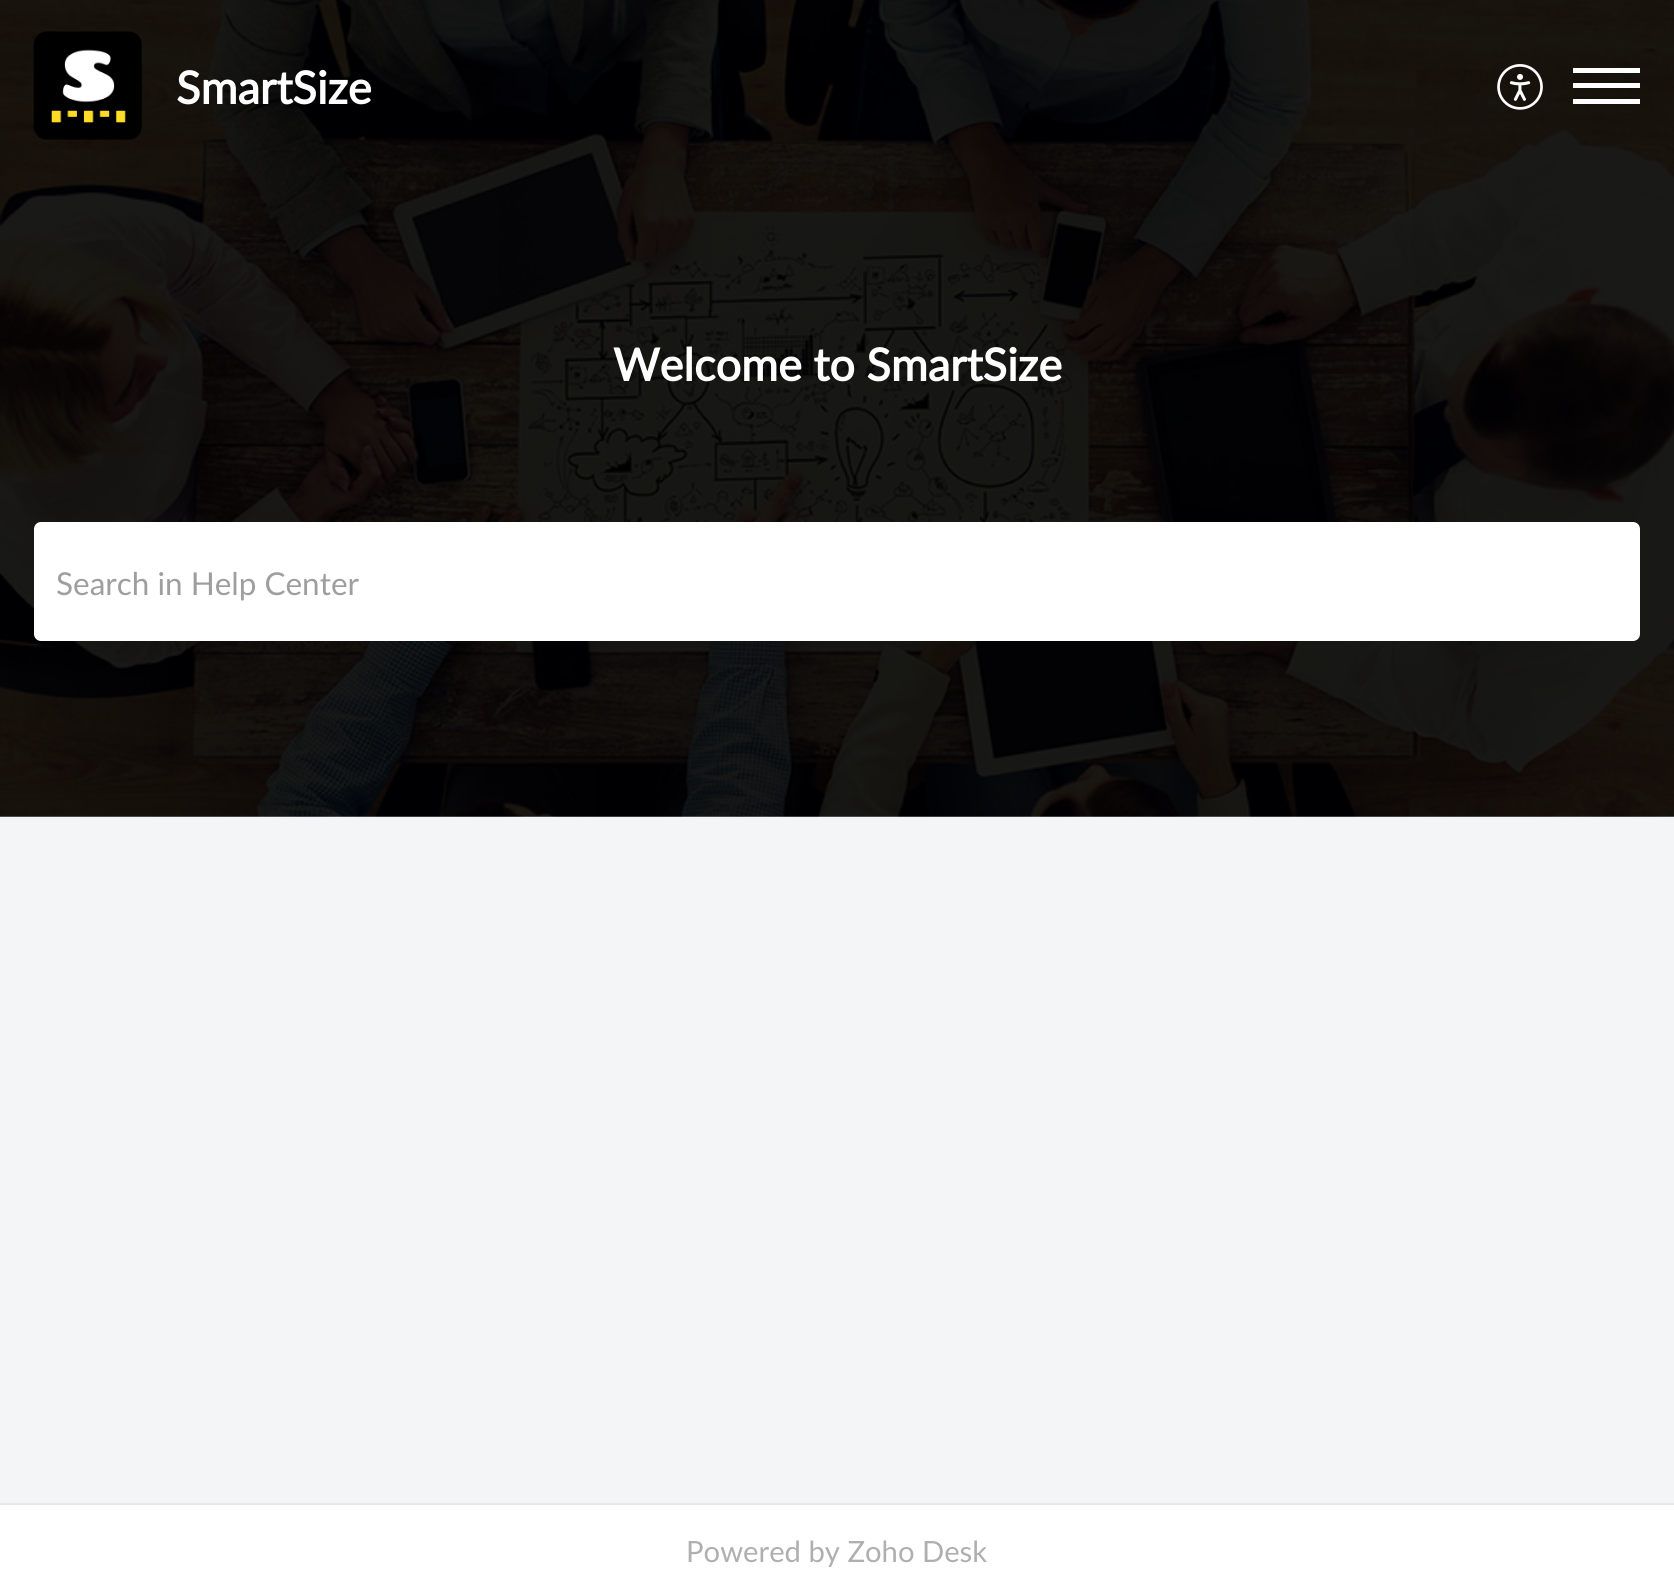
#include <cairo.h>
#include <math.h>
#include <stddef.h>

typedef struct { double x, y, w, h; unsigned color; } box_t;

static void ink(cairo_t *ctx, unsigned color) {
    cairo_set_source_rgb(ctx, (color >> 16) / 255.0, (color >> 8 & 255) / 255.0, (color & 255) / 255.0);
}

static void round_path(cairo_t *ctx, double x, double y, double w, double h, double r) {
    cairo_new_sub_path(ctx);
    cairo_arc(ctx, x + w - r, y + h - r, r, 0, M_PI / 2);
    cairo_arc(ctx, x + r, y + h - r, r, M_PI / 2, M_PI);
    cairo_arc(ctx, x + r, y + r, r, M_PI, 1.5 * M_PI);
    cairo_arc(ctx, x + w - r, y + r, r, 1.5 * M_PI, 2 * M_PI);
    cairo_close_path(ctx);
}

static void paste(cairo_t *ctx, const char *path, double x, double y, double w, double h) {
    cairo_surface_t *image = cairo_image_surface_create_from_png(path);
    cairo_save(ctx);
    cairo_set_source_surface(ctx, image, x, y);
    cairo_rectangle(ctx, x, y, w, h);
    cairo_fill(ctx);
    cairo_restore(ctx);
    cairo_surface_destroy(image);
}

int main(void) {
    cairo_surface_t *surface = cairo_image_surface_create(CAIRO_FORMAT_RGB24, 1674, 1593);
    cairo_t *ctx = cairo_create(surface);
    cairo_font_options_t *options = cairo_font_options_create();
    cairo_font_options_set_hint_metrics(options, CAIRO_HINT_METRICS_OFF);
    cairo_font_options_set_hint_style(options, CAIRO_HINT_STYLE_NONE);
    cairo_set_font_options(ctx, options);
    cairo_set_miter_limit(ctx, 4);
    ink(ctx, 0xF3F5F7);
    cairo_paint(ctx);
    paste(ctx, "media/1.png", 0, 0, 1674, 817);
    paste(ctx, "media/2.png", 33, 31, 109, 109);
    cairo_select_font_face(ctx, "Lato", CAIRO_FONT_SLANT_NORMAL, CAIRO_FONT_WEIGHT_BOLD);
    cairo_set_font_size(ctx, 45);
    ink(ctx, 0xFFFFFF);
    cairo_move_to(ctx, 176, 104);
    cairo_show_text(ctx, "SmartSize");
    paste(ctx, "media/3.png", 1497, 64, 46, 46);
    {
        static const box_t items[] = {
            {1573, 83, 67, 5, 0xFFFFFF},
            {1573, 68, 67, 5, 0xFFFFFF},
            {1573, 99, 67, 5, 0xFFFFFF},
        };
        for (size_t i = 0; i < sizeof items / sizeof *items; i++) {
            ink(ctx, items[i].color);
            cairo_rectangle(ctx, items[i].x, items[i].y, items[i].w, items[i].h);
            cairo_fill(ctx);
        }
    }
    cairo_move_to(ctx, 613, 381);
    cairo_show_text(ctx, "Welcome to SmartSize");
    round_path(ctx, 34, 522, 1606, 119, 7);
    cairo_fill(ctx);
    cairo_select_font_face(ctx, "Lato", CAIRO_FONT_SLANT_NORMAL, CAIRO_FONT_WEIGHT_NORMAL);
    cairo_set_font_size(ctx, 31.5);
    ink(ctx, 0x9E9E9E);
    cairo_move_to(ctx, 56, 595);
    cairo_show_text(ctx, "Search in Help Center");
    ink(ctx, 0xFFFFFF);
    cairo_rectangle(ctx, 0, 1505, 1674, 88);
    cairo_fill(ctx);
    ink(ctx, 0xE7E7E7);
    cairo_rectangle(ctx, 0, 1503, 1674, 2);
    cairo_fill(ctx);
    cairo_set_font_size(ctx, 29.25);
    ink(ctx, 0xAFAFAF);
    cairo_move_to(ctx, 686, 1562);
    cairo_show_text(ctx, "Powered by Zoho Desk");
    cairo_surface_write_to_png(surface, "image.png");
    cairo_font_options_destroy(options);
    cairo_destroy(ctx);
    cairo_surface_destroy(surface);
    return 0;
}
